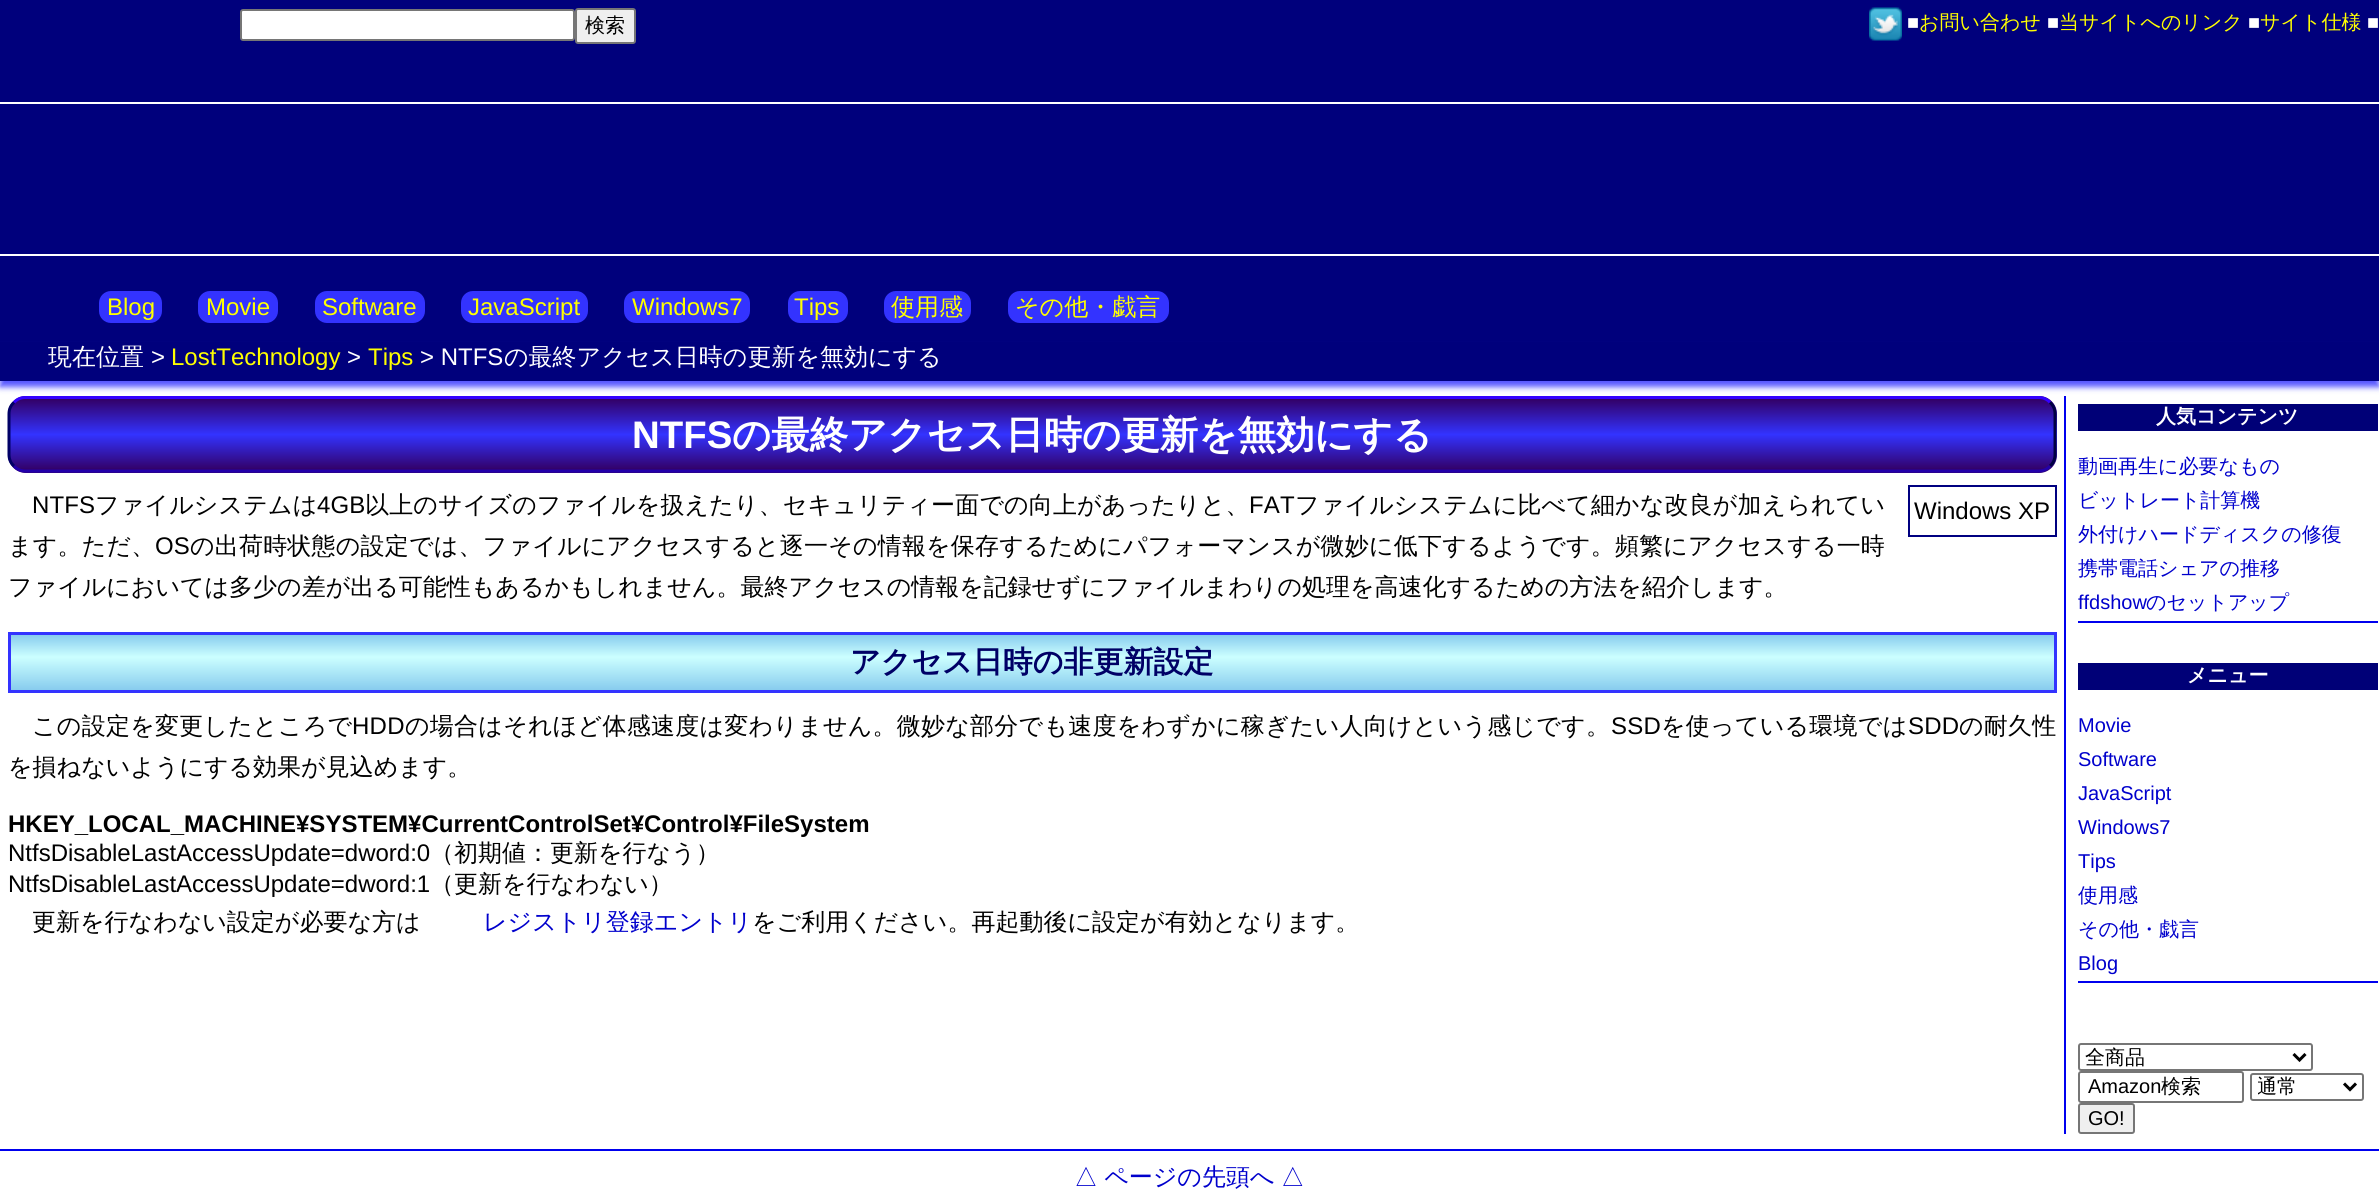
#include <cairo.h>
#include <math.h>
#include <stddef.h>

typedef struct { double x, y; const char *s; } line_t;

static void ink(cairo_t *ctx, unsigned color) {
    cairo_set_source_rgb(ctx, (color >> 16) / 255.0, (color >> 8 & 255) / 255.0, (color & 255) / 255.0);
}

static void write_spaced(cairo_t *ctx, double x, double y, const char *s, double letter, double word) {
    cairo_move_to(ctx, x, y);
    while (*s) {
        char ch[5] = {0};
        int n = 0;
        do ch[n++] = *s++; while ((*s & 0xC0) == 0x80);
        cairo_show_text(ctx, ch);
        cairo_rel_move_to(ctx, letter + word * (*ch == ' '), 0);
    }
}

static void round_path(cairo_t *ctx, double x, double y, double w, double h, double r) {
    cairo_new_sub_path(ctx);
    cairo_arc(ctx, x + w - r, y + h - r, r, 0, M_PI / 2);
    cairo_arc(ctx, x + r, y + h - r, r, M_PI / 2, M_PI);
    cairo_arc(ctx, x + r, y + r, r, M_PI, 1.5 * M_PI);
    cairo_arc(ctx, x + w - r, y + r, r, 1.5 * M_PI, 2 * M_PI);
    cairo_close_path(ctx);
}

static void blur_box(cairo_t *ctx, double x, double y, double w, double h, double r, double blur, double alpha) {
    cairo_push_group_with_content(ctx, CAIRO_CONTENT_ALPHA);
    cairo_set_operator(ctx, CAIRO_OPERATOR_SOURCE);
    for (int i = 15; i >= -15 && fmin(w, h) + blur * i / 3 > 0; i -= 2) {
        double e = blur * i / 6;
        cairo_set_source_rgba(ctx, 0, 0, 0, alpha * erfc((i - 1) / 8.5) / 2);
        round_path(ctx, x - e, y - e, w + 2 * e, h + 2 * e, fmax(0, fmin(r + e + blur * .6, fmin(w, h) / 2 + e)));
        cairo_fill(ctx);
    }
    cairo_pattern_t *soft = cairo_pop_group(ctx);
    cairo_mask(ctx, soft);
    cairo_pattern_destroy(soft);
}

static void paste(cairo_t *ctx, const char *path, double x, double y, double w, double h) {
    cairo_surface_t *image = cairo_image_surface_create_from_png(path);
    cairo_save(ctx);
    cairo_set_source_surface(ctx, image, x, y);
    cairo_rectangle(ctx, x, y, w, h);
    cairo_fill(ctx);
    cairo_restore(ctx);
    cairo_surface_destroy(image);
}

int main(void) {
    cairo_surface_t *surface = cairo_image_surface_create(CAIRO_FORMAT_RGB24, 2379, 1191);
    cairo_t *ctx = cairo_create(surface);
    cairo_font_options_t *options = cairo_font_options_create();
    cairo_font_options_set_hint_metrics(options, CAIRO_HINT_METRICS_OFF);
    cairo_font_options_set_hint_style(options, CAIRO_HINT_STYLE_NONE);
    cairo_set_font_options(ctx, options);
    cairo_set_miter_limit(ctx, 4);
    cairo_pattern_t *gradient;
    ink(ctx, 0xFFFFFF);
    cairo_paint(ctx);
    ink(ctx, 0x00007C);
    cairo_rectangle(ctx, 0, 0, 2379, 342);
    cairo_fill(ctx);
    ink(ctx, 0xFFFFFF);
    round_path(ctx, 241, 10, 333, 30, 2);
    cairo_fill_preserve(ctx);
    ink(ctx, 0x767676);
    cairo_stroke(ctx);
    ink(ctx, 0xEFEFEF);
    round_path(ctx, 576, 9, 59, 34, 2);
    cairo_fill_preserve(ctx);
    ink(ctx, 0x767676);
    cairo_stroke(ctx);
    cairo_select_font_face(ctx, "WenQuanYi Zen Hei Medium", CAIRO_FONT_SLANT_NORMAL, CAIRO_FONT_WEIGHT_NORMAL);
    cairo_set_font_size(ctx, 20);
    ink(ctx, 0x000000);
    cairo_move_to(ctx, 585, 32);
    cairo_show_text(ctx, "検索");
    paste(ctx, "media/1.png", 1869, 7, 33, 34);
    cairo_select_font_face(ctx, "Liberation Sans", CAIRO_FONT_SLANT_NORMAL, CAIRO_FONT_WEIGHT_NORMAL);
    ink(ctx, 0xFFFFFF);
    cairo_move_to(ctx, 1907, 29);
    cairo_show_text(ctx, "■");
    cairo_select_font_face(ctx, "WenQuanYi Zen Hei Medium", CAIRO_FONT_SLANT_NORMAL, CAIRO_FONT_WEIGHT_NORMAL);
    ink(ctx, 0xFFFF00);
    cairo_move_to(ctx, 1919, 29);
    cairo_show_text(ctx, "お問い合わせ");
    cairo_select_font_face(ctx, "Liberation Sans", CAIRO_FONT_SLANT_NORMAL, CAIRO_FONT_WEIGHT_NORMAL);
    ink(ctx, 0xFFFFFF);
    cairo_move_to(ctx, 2047, 29);
    cairo_show_text(ctx, "■");
    cairo_select_font_face(ctx, "WenQuanYi Zen Hei Medium", CAIRO_FONT_SLANT_NORMAL, CAIRO_FONT_WEIGHT_NORMAL);
    ink(ctx, 0xFFFF00);
    cairo_move_to(ctx, 2059, 29);
    cairo_show_text(ctx, "当サイトへのリンク");
    cairo_select_font_face(ctx, "Liberation Sans", CAIRO_FONT_SLANT_NORMAL, CAIRO_FONT_WEIGHT_NORMAL);
    ink(ctx, 0xFFFFFF);
    cairo_move_to(ctx, 2248, 29);
    cairo_show_text(ctx, "■");
    cairo_select_font_face(ctx, "WenQuanYi Zen Hei Medium", CAIRO_FONT_SLANT_NORMAL, CAIRO_FONT_WEIGHT_NORMAL);
    ink(ctx, 0xFFFF00);
    cairo_move_to(ctx, 2260, 29);
    cairo_show_text(ctx, "サイト仕様");
    cairo_select_font_face(ctx, "Liberation Sans", CAIRO_FONT_SLANT_NORMAL, CAIRO_FONT_WEIGHT_NORMAL);
    ink(ctx, 0xFFFFFF);
    cairo_move_to(ctx, 2367, 29);
    cairo_show_text(ctx, "■");
    cairo_rectangle(ctx, 0, 102, 2379, 2);
    cairo_fill(ctx);
    cairo_rectangle(ctx, 0, 254, 2379, 2);
    cairo_fill(ctx);
    ink(ctx, 0x3333FF);
    round_path(ctx, 99, 291, 63, 32, 12);
    cairo_fill(ctx);
    cairo_set_font_size(ctx, 24);
    ink(ctx, 0xFFFF00);
    cairo_move_to(ctx, 107, 315);
    cairo_show_text(ctx, "Blog");
    ink(ctx, 0x3333FF);
    round_path(ctx, 198, 291, 80, 32, 12);
    cairo_fill(ctx);
    ink(ctx, 0xFFFF00);
    cairo_move_to(ctx, 206, 315);
    cairo_show_text(ctx, "Movie");
    ink(ctx, 0x3333FF);
    round_path(ctx, 315, 291, 110, 32, 12);
    cairo_fill(ctx);
    ink(ctx, 0xFFFF00);
    cairo_move_to(ctx, 322, 315);
    cairo_show_text(ctx, "Software");
    ink(ctx, 0x3333FF);
    round_path(ctx, 461, 291, 127, 32, 12);
    cairo_fill(ctx);
    ink(ctx, 0xFFFF00);
    cairo_move_to(ctx, 468, 315);
    cairo_show_text(ctx, "JavaScript");
    ink(ctx, 0x3333FF);
    round_path(ctx, 624, 291, 126, 32, 12);
    cairo_fill(ctx);
    ink(ctx, 0xFFFF00);
    cairo_move_to(ctx, 632, 315);
    cairo_show_text(ctx, "Windows7");
    ink(ctx, 0x3333FF);
    round_path(ctx, 788, 291, 60, 32, 12);
    cairo_fill(ctx);
    ink(ctx, 0xFFFF00);
    cairo_move_to(ctx, 794, 315);
    cairo_show_text(ctx, "Tips");
    ink(ctx, 0x3333FF);
    round_path(ctx, 884, 291, 87, 32, 12);
    cairo_fill(ctx);
    cairo_select_font_face(ctx, "WenQuanYi Zen Hei Medium", CAIRO_FONT_SLANT_NORMAL, CAIRO_FONT_WEIGHT_NORMAL);
    ink(ctx, 0xFFFF00);
    cairo_move_to(ctx, 891, 315);
    cairo_show_text(ctx, "使用感");
    ink(ctx, 0x3333FF);
    round_path(ctx, 1008, 291, 161, 32, 12);
    cairo_fill(ctx);
    ink(ctx, 0xFFFF00);
    cairo_move_to(ctx, 1015, 315);
    cairo_show_text(ctx, "その他・戯言");
    cairo_save(ctx);
    round_path(ctx, 8, 396, 2049, 77, 18);
    cairo_clip(ctx);
    gradient = cairo_pattern_create_linear(11, 329, 11, 399);
    cairo_pattern_add_color_stop_rgba(gradient, 0, 0.2, 0, 0.4, 1);
    cairo_pattern_add_color_stop_rgba(gradient, 0.5, 0.2, 0.2, 1, 1);
    cairo_pattern_add_color_stop_rgba(gradient, 1, 0.2, 0, 0.4, 1);
    cairo_set_source(ctx, gradient);
    cairo_pattern_destroy(gradient);
    cairo_rectangle(ctx, 8, 396, 2049, 3);
    cairo_fill(ctx);
    gradient = cairo_pattern_create_linear(11, 399, 11, 470);
    cairo_pattern_add_color_stop_rgba(gradient, 0, 0.2, 0, 0.4, 1);
    cairo_pattern_add_color_stop_rgba(gradient, 0.5, 0.2, 0.2, 1, 1);
    cairo_pattern_add_color_stop_rgba(gradient, 1, 0.2, 0, 0.4, 1);
    cairo_set_source(ctx, gradient);
    cairo_pattern_destroy(gradient);
    cairo_rectangle(ctx, 8, 399, 2049, 71);
    cairo_fill(ctx);
    cairo_restore(ctx);
    cairo_new_path(ctx);
    cairo_move_to(ctx, 14, 402.5);
    cairo_curve_to(ctx, 17, 399, 21, 397.5, 25.5, 397.5);
    cairo_line_to(ctx, 2038.5, 397.5);
    cairo_curve_to(ctx, 2043, 397.5, 2047, 399, 2050, 402.5);
    ink(ctx, 0x3300FF);
    cairo_set_line_width(ctx, 3);
    cairo_stroke(ctx);
    ink(ctx, 0x5555FF);
    blur_box(ctx, 0, 348, 2379, 39, 0, 3, 1);
    ink(ctx, 0x00007C);
    cairo_rectangle(ctx, 0, 342, 2379, 39);
    cairo_fill(ctx);
    ink(ctx, 0xFFFFFF);
    cairo_move_to(ctx, 48, 365);
    cairo_show_text(ctx, "現在位置");
    cairo_select_font_face(ctx, "Liberation Sans", CAIRO_FONT_SLANT_NORMAL, CAIRO_FONT_WEIGHT_NORMAL);
    cairo_move_to(ctx, 151, 365);
    cairo_show_text(ctx, ">");
    ink(ctx, 0xFFFF00);
    cairo_move_to(ctx, 171, 365);
    cairo_show_text(ctx, "LostTechnology");
    ink(ctx, 0xFFFFFF);
    cairo_move_to(ctx, 347, 365);
    cairo_show_text(ctx, ">");
    ink(ctx, 0xFFFF00);
    cairo_move_to(ctx, 368, 365);
    cairo_show_text(ctx, "Tips");
    ink(ctx, 0xFFFFFF);
    cairo_move_to(ctx, 420, 365);
    cairo_show_text(ctx, "> NTFS");
    cairo_select_font_face(ctx, "WenQuanYi Zen Hei Medium", CAIRO_FONT_SLANT_NORMAL, CAIRO_FONT_WEIGHT_NORMAL);
    cairo_move_to(ctx, 504, 365);
    cairo_show_text(ctx, "の最終アクセス日時の更新を無効にする");
    cairo_save(ctx);
    round_path(ctx, 8, 396, 2049, 77, 18);
    cairo_clip(ctx);
    gradient = cairo_pattern_create_linear(11, 470, 11, 540);
    cairo_pattern_add_color_stop_rgba(gradient, 0, 0.2, 0, 0.4, 1);
    cairo_pattern_add_color_stop_rgba(gradient, 0.5, 0.2, 0.2, 1, 1);
    cairo_pattern_add_color_stop_rgba(gradient, 1, 0.2, 0, 0.4, 1);
    cairo_set_source(ctx, gradient);
    cairo_pattern_destroy(gradient);
    cairo_rectangle(ctx, 8, 470, 2049, 3);
    cairo_fill(ctx);
    cairo_restore(ctx);
    cairo_new_path(ctx);
    cairo_move_to(ctx, 2050, 402.5);
    cairo_curve_to(ctx, 2053.5, 405.5, 2055, 409.5, 2055, 414);
    cairo_line_to(ctx, 2055, 454.5);
    cairo_curve_to(ctx, 2055, 459, 2053.5, 463, 2050, 466);
    ink(ctx, 0x000044);
    cairo_stroke(ctx);
    cairo_new_path(ctx);
    cairo_move_to(ctx, 2050, 466);
    cairo_curve_to(ctx, 2047, 469.5, 2043, 471, 2038.5, 471);
    cairo_line_to(ctx, 25.5, 471);
    cairo_curve_to(ctx, 21, 471, 17, 469.5, 14, 466);
    ink(ctx, 0x2200AA);
    cairo_stroke(ctx);
    cairo_new_path(ctx);
    cairo_move_to(ctx, 14, 466);
    cairo_curve_to(ctx, 10.5, 463, 9, 459, 9, 454.5);
    cairo_line_to(ctx, 9, 414);
    cairo_curve_to(ctx, 9, 409.5, 10.5, 405.5, 14, 402.5);
    ink(ctx, 0x000066);
    cairo_stroke(ctx);
    cairo_select_font_face(ctx, "Liberation Sans", CAIRO_FONT_SLANT_NORMAL, CAIRO_FONT_WEIGHT_BOLD);
    cairo_set_font_size(ctx, 38.4);
    ink(ctx, 0xFFFFFF);
    cairo_move_to(ctx, 632, 448);
    cairo_show_text(ctx, "NTFS");
    cairo_select_font_face(ctx, "WenQuanYi Zen Hei", CAIRO_FONT_SLANT_NORMAL, CAIRO_FONT_WEIGHT_BOLD);
    cairo_move_to(ctx, 732, 448);
    cairo_show_text(ctx, "の最終アクセス日時の更新を無効にする");
    cairo_select_font_face(ctx, "Liberation Sans", CAIRO_FONT_SLANT_NORMAL, CAIRO_FONT_WEIGHT_NORMAL);
    cairo_set_font_size(ctx, 24);
    ink(ctx, 0x000000);
    write_spaced(ctx, 32, 513, "NTFS", 0.15, 0);
    cairo_select_font_face(ctx, "WenQuanYi Zen Hei Medium", CAIRO_FONT_SLANT_NORMAL, CAIRO_FONT_WEIGHT_NORMAL);
    write_spaced(ctx, 95, 513, "ファイルシステムは", 0.15, 0);
    cairo_select_font_face(ctx, "Liberation Sans", CAIRO_FONT_SLANT_NORMAL, CAIRO_FONT_WEIGHT_NORMAL);
    write_spaced(ctx, 317, 513, "4GB", 0.15, 0);
    cairo_select_font_face(ctx, "WenQuanYi Zen Hei Medium", CAIRO_FONT_SLANT_NORMAL, CAIRO_FONT_WEIGHT_NORMAL);
    write_spaced(ctx, 365, 513, "以上のサイズのファイルを扱えたり、セキュリティー面での向上があったりと、", 0.15, 0);
    cairo_select_font_face(ctx, "Liberation Sans", CAIRO_FONT_SLANT_NORMAL, CAIRO_FONT_WEIGHT_NORMAL);
    write_spaced(ctx, 1249, 513, "FAT", 0.15, 0);
    cairo_select_font_face(ctx, "WenQuanYi Zen Hei Medium", CAIRO_FONT_SLANT_NORMAL, CAIRO_FONT_WEIGHT_NORMAL);
    write_spaced(ctx, 1295, 513, "ファイルシステムに比べて細かな改良が加えられてい", 0.15, 0);
    write_spaced(ctx, 8, 554, "ます。ただ、", 0.2, 0);
    cairo_select_font_face(ctx, "Liberation Sans", CAIRO_FONT_SLANT_NORMAL, CAIRO_FONT_WEIGHT_NORMAL);
    write_spaced(ctx, 155, 554, "OS", 0.2, 0);
    cairo_select_font_face(ctx, "WenQuanYi Zen Hei Medium", CAIRO_FONT_SLANT_NORMAL, CAIRO_FONT_WEIGHT_NORMAL);
    write_spaced(ctx, 190, 554, "の出荷時状態の設定では、ファイルにアクセスすると逐一その情報を保存するためにパフォーマンスが微妙に低下するようです。頻繁にアクセスする一時", 0.2, 0);
    cairo_move_to(ctx, 8, 595);
    cairo_show_text(ctx, "ファイルにおいては多少の差が出る可能性もあるかもしれません。最終アクセスの情報を記録せずにファイルまわりの処理を高速化するための方法を紹介します。");
    cairo_rectangle(ctx, 1909, 486, 147, 50);
    ink(ctx, 0x000080);
    cairo_set_line_width(ctx, 2);
    cairo_stroke(ctx);
    cairo_select_font_face(ctx, "Liberation Sans", CAIRO_FONT_SLANT_NORMAL, CAIRO_FONT_WEIGHT_NORMAL);
    ink(ctx, 0x000000);
    cairo_move_to(ctx, 1914, 519);
    cairo_show_text(ctx, "Windows XP");
    gradient = cairo_pattern_create_linear(11, 635, 11, 690);
    cairo_pattern_add_color_stop_rgba(gradient, 0, 0.533, 0.8, 0.933, 1);
    cairo_pattern_add_color_stop_rgba(gradient, 0.4, 0.8, 1, 1, 1);
    cairo_pattern_add_color_stop_rgba(gradient, 1, 0.533, 0.8, 0.933, 1);
    cairo_set_source(ctx, gradient);
    cairo_pattern_destroy(gradient);
    cairo_rectangle(ctx, 11, 635, 2043, 55);
    cairo_fill(ctx);
    cairo_rectangle(ctx, 9.5, 633.5, 2046, 58);
    ink(ctx, 0x3333FF);
    cairo_set_line_width(ctx, 3);
    cairo_stroke(ctx);
    cairo_select_font_face(ctx, "WenQuanYi Zen Hei", CAIRO_FONT_SLANT_NORMAL, CAIRO_FONT_WEIGHT_BOLD);
    cairo_set_font_size(ctx, 30);
    ink(ctx, 0x000066);
    cairo_move_to(ctx, 850, 672);
    cairo_show_text(ctx, "アクセス日時の非更新設定");
    cairo_select_font_face(ctx, "WenQuanYi Zen Hei Medium", CAIRO_FONT_SLANT_NORMAL, CAIRO_FONT_WEIGHT_NORMAL);
    cairo_set_font_size(ctx, 24);
    ink(ctx, 0x000000);
    write_spaced(ctx, 32, 734, "この設定を変更したところで", 0.25, 0);
    cairo_select_font_face(ctx, "Liberation Sans", CAIRO_FONT_SLANT_NORMAL, CAIRO_FONT_WEIGHT_NORMAL);
    write_spaced(ctx, 352, 734, "HDD", 0.25, 0);
    cairo_select_font_face(ctx, "WenQuanYi Zen Hei Medium", CAIRO_FONT_SLANT_NORMAL, CAIRO_FONT_WEIGHT_NORMAL);
    write_spaced(ctx, 405, 734, "の場合はそれほど体感速度は変わりません。微妙な部分でも速度をわずかに稼ぎたい人向けという感じです。", 0.25, 0);
    cairo_select_font_face(ctx, "Liberation Sans", CAIRO_FONT_SLANT_NORMAL, CAIRO_FONT_WEIGHT_NORMAL);
    write_spaced(ctx, 1611, 734, "SSD", 0.25, 0);
    cairo_select_font_face(ctx, "WenQuanYi Zen Hei Medium", CAIRO_FONT_SLANT_NORMAL, CAIRO_FONT_WEIGHT_NORMAL);
    write_spaced(ctx, 1661, 734, "を使っている環境では", 0.25, 0);
    cairo_select_font_face(ctx, "Liberation Sans", CAIRO_FONT_SLANT_NORMAL, CAIRO_FONT_WEIGHT_NORMAL);
    write_spaced(ctx, 1908, 734, "SDD", 0.25, 0);
    cairo_select_font_face(ctx, "WenQuanYi Zen Hei Medium", CAIRO_FONT_SLANT_NORMAL, CAIRO_FONT_WEIGHT_NORMAL);
    write_spaced(ctx, 1959, 734, "の耐久性", 0.25, 0);
    cairo_move_to(ctx, 8, 775);
    cairo_show_text(ctx, "を損ねないようにする効果が見込めます。");
    cairo_select_font_face(ctx, "Liberation Sans", CAIRO_FONT_SLANT_NORMAL, CAIRO_FONT_WEIGHT_BOLD);
    cairo_move_to(ctx, 8, 832);
    cairo_show_text(ctx, "HKEY_LOCAL_MACHINE¥SYSTEM¥CurrentControlSet¥Control¥FileSystem");
    cairo_select_font_face(ctx, "Liberation Sans", CAIRO_FONT_SLANT_NORMAL, CAIRO_FONT_WEIGHT_NORMAL);
    cairo_move_to(ctx, 8, 861);
    cairo_show_text(ctx, "NtfsDisableLastAccessUpdate=dword:0");
    cairo_select_font_face(ctx, "WenQuanYi Zen Hei Medium", CAIRO_FONT_SLANT_NORMAL, CAIRO_FONT_WEIGHT_NORMAL);
    cairo_move_to(ctx, 430, 861);
    cairo_show_text(ctx, "（初期値：更新を行なう）");
    cairo_select_font_face(ctx, "Liberation Sans", CAIRO_FONT_SLANT_NORMAL, CAIRO_FONT_WEIGHT_NORMAL);
    cairo_move_to(ctx, 8, 892);
    cairo_show_text(ctx, "NtfsDisableLastAccessUpdate=dword:1");
    cairo_select_font_face(ctx, "WenQuanYi Zen Hei Medium", CAIRO_FONT_SLANT_NORMAL, CAIRO_FONT_WEIGHT_NORMAL);
    cairo_move_to(ctx, 430, 892);
    cairo_show_text(ctx, "（更新を行なわない）");
    cairo_move_to(ctx, 32, 930);
    cairo_show_text(ctx, "更新を行なわない設定が必要な方は");
    ink(ctx, 0x0000CC);
    cairo_move_to(ctx, 483, 930);
    cairo_show_text(ctx, "レジストリ登録エントリ");
    ink(ctx, 0x000000);
    cairo_move_to(ctx, 752, 930);
    cairo_show_text(ctx, "をご利用ください。再起動後に設定が有効となります。");
    ink(ctx, 0x0000EE);
    cairo_rectangle(ctx, 2064, 396, 2, 738);
    cairo_fill(ctx);
    ink(ctx, 0x000077);
    cairo_rectangle(ctx, 2078, 404, 300, 27);
    cairo_fill(ctx);
    cairo_select_font_face(ctx, "WenQuanYi Zen Hei", CAIRO_FONT_SLANT_NORMAL, CAIRO_FONT_WEIGHT_BOLD);
    cairo_set_font_size(ctx, 20);
    ink(ctx, 0xFFFFFF);
    cairo_move_to(ctx, 2156, 423);
    cairo_show_text(ctx, "人気コンテンツ");
    ink(ctx, 0x0000EE);
    cairo_rectangle(ctx, 2078, 621, 300, 2);
    cairo_fill(ctx);
    cairo_select_font_face(ctx, "WenQuanYi Zen Hei Medium", CAIRO_FONT_SLANT_NORMAL, CAIRO_FONT_WEIGHT_NORMAL);
    ink(ctx, 0x0000CC);
    {
        static const line_t items[] = {
            {2078, 473, "動画再生に必要なもの"},
            {2078, 507, "ビットレート計算機"},
            {2078, 541, "外付けハードディスクの修復"},
            {2078, 575, "携帯電話シェアの推移"},
        };
        for (size_t i = 0; i < sizeof items / sizeof *items; i++) {
            cairo_move_to(ctx, items[i].x, items[i].y);
            cairo_show_text(ctx, items[i].s);
        }
    }
    cairo_select_font_face(ctx, "Liberation Sans", CAIRO_FONT_SLANT_NORMAL, CAIRO_FONT_WEIGHT_NORMAL);
    cairo_move_to(ctx, 2078, 609);
    cairo_show_text(ctx, "ffdshow");
    cairo_select_font_face(ctx, "WenQuanYi Zen Hei Medium", CAIRO_FONT_SLANT_NORMAL, CAIRO_FONT_WEIGHT_NORMAL);
    cairo_move_to(ctx, 2146, 609);
    cairo_show_text(ctx, "のセットアップ");
    ink(ctx, 0x000077);
    cairo_rectangle(ctx, 2078, 663, 300, 27);
    cairo_fill(ctx);
    cairo_select_font_face(ctx, "WenQuanYi Zen Hei", CAIRO_FONT_SLANT_NORMAL, CAIRO_FONT_WEIGHT_BOLD);
    ink(ctx, 0xFFFFFF);
    cairo_move_to(ctx, 2187, 682);
    cairo_show_text(ctx, "メニュー");
    ink(ctx, 0x0000EE);
    cairo_rectangle(ctx, 2078, 981, 300, 2);
    cairo_fill(ctx);
    cairo_select_font_face(ctx, "Liberation Sans", CAIRO_FONT_SLANT_NORMAL, CAIRO_FONT_WEIGHT_NORMAL);
    ink(ctx, 0x0000CC);
    {
        static const line_t items[] = {
            {2078, 732, "Movie"},
            {2078, 766, "Software"},
            {2078, 800, "JavaScript"},
            {2078, 834, "Windows7"},
            {2078, 868, "Tips"},
        };
        for (size_t i = 0; i < sizeof items / sizeof *items; i++) {
            cairo_move_to(ctx, items[i].x, items[i].y);
            cairo_show_text(ctx, items[i].s);
        }
    }
    cairo_select_font_face(ctx, "WenQuanYi Zen Hei Medium", CAIRO_FONT_SLANT_NORMAL, CAIRO_FONT_WEIGHT_NORMAL);
    cairo_move_to(ctx, 2078, 902);
    cairo_show_text(ctx, "使用感");
    cairo_move_to(ctx, 2078, 936);
    cairo_show_text(ctx, "その他・戯言");
    cairo_select_font_face(ctx, "Liberation Sans", CAIRO_FONT_SLANT_NORMAL, CAIRO_FONT_WEIGHT_NORMAL);
    cairo_move_to(ctx, 2078, 970);
    cairo_show_text(ctx, "Blog");
    round_path(ctx, 2079, 1044, 233, 26, 2);
    ink(ctx, 0x767676);
    cairo_set_line_width(ctx, 2);
    cairo_stroke(ctx);
    cairo_new_path(ctx);
    cairo_move_to(ctx, 2293.5, 1054);
    cairo_line_to(ctx, 2299.5, 1060);
    cairo_line_to(ctx, 2305.5, 1054);
    ink(ctx, 0x000000);
    cairo_set_line_width(ctx, 3);
    cairo_stroke(ctx);
    cairo_select_font_face(ctx, "WenQuanYi Zen Hei Medium", CAIRO_FONT_SLANT_NORMAL, CAIRO_FONT_WEIGHT_NORMAL);
    cairo_move_to(ctx, 2085, 1064);
    cairo_show_text(ctx, "全商品");
    round_path(ctx, 2079, 1072, 164, 30, 2);
    ink(ctx, 0x767676);
    cairo_set_line_width(ctx, 2);
    cairo_stroke(ctx);
    cairo_select_font_face(ctx, "Liberation Sans", CAIRO_FONT_SLANT_NORMAL, CAIRO_FONT_WEIGHT_NORMAL);
    ink(ctx, 0x000000);
    cairo_move_to(ctx, 2088, 1093);
    cairo_show_text(ctx, "Amazon");
    cairo_select_font_face(ctx, "WenQuanYi Zen Hei Medium", CAIRO_FONT_SLANT_NORMAL, CAIRO_FONT_WEIGHT_NORMAL);
    cairo_move_to(ctx, 2161, 1093);
    cairo_show_text(ctx, "検索");
    round_path(ctx, 2251, 1074, 112, 26, 2);
    ink(ctx, 0x767676);
    cairo_stroke(ctx);
    cairo_new_path(ctx);
    cairo_move_to(ctx, 2344, 1083.5);
    cairo_line_to(ctx, 2350, 1089.5);
    cairo_line_to(ctx, 2356, 1083.5);
    ink(ctx, 0x000000);
    cairo_set_line_width(ctx, 3);
    cairo_stroke(ctx);
    cairo_save(ctx);
    cairo_rectangle(ctx, 2258, 1074, 81, 26);
    cairo_clip(ctx);
    cairo_move_to(ctx, 2257, 1093);
    cairo_show_text(ctx, "通常");
    cairo_restore(ctx);
    ink(ctx, 0xEFEFEF);
    round_path(ctx, 2079, 1104, 55, 29, 2);
    cairo_fill_preserve(ctx);
    ink(ctx, 0x767676);
    cairo_set_line_width(ctx, 2);
    cairo_stroke(ctx);
    cairo_select_font_face(ctx, "Liberation Sans", CAIRO_FONT_SLANT_NORMAL, CAIRO_FONT_WEIGHT_NORMAL);
    ink(ctx, 0x000000);
    cairo_move_to(ctx, 2088, 1125);
    cairo_show_text(ctx, "GO!");
    ink(ctx, 0x0000EE);
    cairo_rectangle(ctx, 0, 1149, 2379, 2);
    cairo_fill(ctx);
    cairo_select_font_face(ctx, "WenQuanYi Zen Hei Medium", CAIRO_FONT_SLANT_NORMAL, CAIRO_FONT_WEIGHT_NORMAL);
    cairo_set_font_size(ctx, 24);
    ink(ctx, 0x0000CC);
    write_spaced(ctx, 1074, 1185, "△ ページの先頭へ △", 0, -1);
    cairo_surface_write_to_png(surface, "image.png");
    cairo_font_options_destroy(options);
    cairo_destroy(ctx);
    cairo_surface_destroy(surface);
    return 0;
}
